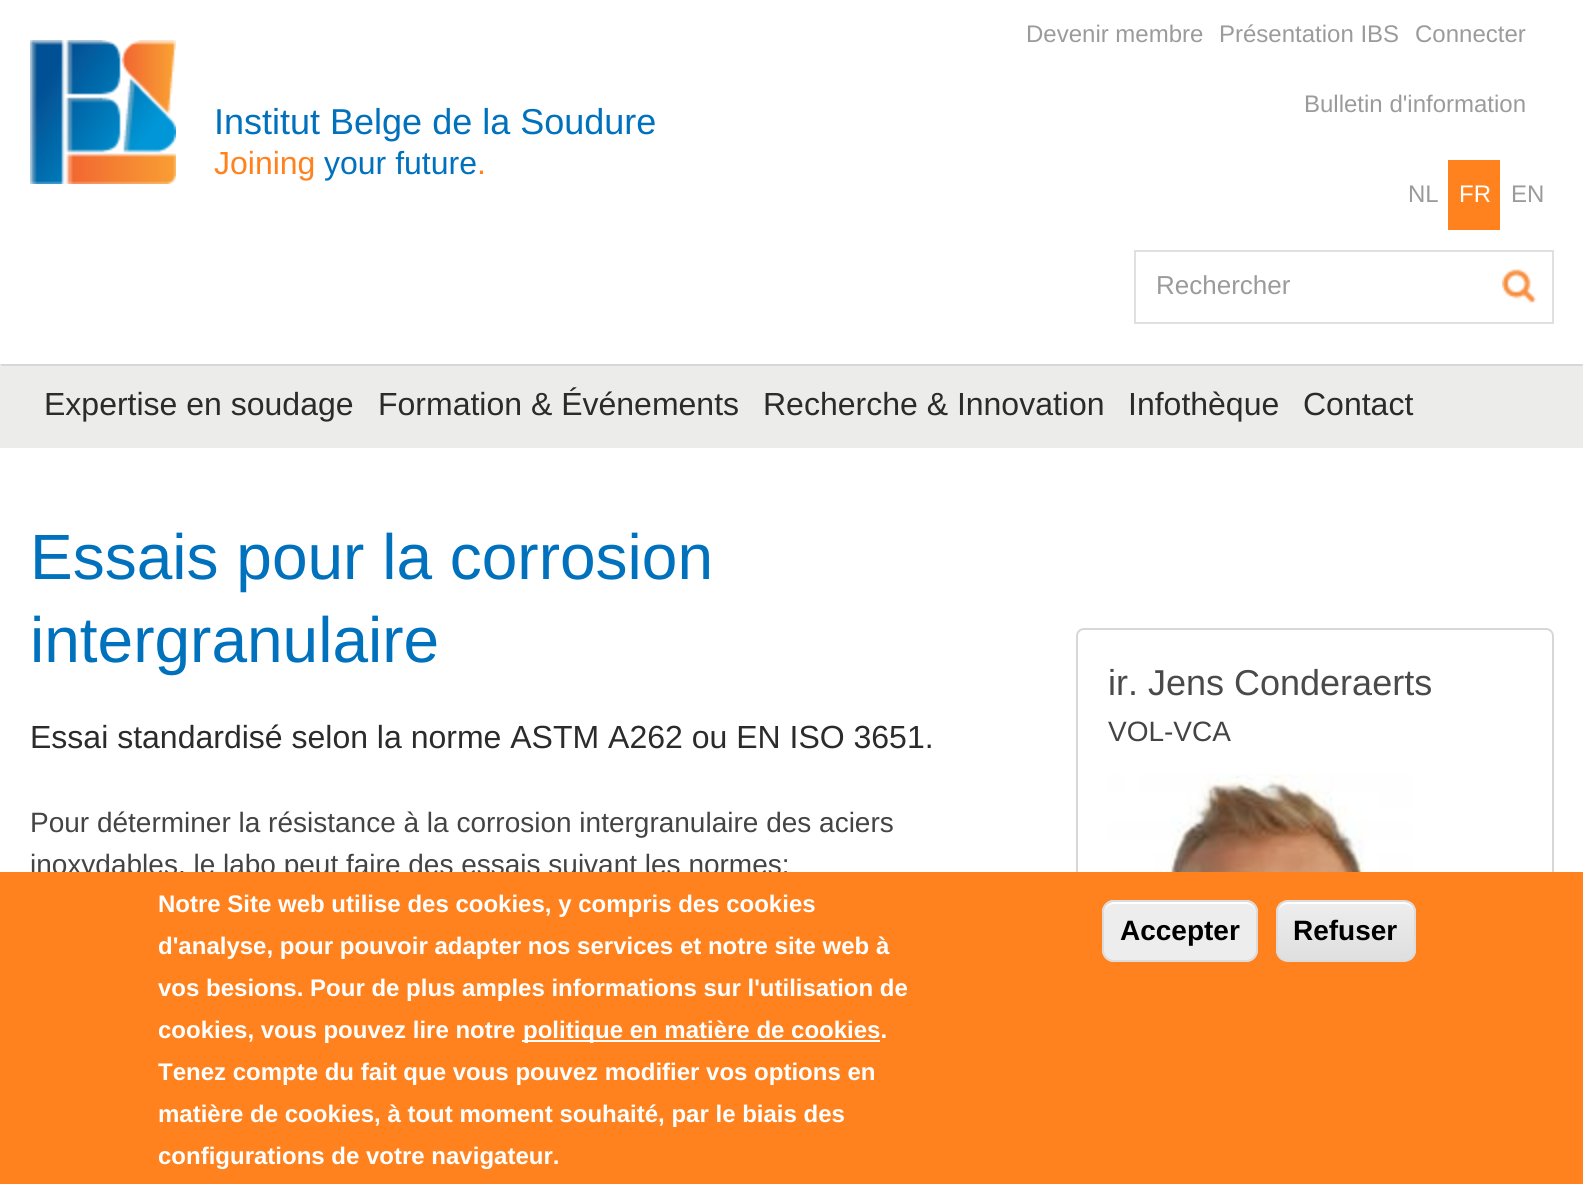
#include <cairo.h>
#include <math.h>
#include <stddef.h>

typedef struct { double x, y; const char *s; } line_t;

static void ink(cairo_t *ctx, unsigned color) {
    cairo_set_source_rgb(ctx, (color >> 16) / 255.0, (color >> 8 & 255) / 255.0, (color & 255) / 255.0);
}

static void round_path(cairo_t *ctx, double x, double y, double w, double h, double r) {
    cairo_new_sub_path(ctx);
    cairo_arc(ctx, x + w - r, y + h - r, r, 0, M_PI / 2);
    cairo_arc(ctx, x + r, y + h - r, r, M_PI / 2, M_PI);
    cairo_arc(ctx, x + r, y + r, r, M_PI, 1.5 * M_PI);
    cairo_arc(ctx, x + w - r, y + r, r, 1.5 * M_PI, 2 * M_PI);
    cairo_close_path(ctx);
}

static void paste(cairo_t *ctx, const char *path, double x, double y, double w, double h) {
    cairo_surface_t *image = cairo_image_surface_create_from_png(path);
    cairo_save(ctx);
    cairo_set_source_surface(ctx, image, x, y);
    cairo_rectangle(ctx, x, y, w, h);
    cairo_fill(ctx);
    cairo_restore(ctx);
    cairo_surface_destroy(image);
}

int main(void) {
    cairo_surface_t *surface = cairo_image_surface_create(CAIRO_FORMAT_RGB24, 1583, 1184);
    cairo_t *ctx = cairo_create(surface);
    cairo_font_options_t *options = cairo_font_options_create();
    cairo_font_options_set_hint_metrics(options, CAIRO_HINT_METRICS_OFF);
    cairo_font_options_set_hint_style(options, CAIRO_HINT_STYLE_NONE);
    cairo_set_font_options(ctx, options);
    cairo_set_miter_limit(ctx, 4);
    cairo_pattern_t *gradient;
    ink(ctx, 0xFFFFFF);
    cairo_paint(ctx);
    paste(ctx, "media/1.png", 30, 40, 146, 144);
    cairo_select_font_face(ctx, "Liberation Sans", CAIRO_FONT_SLANT_NORMAL, CAIRO_FONT_WEIGHT_NORMAL);
    cairo_set_font_size(ctx, 36);
    ink(ctx, 0x0071BD);
    cairo_move_to(ctx, 214, 134);
    cairo_show_text(ctx, "Institut Belge de la Soudure");
    cairo_set_font_size(ctx, 32);
    ink(ctx, 0xFF821E);
    cairo_move_to(ctx, 214, 174);
    cairo_show_text(ctx, "Joining");
    ink(ctx, 0x0071BD);
    cairo_move_to(ctx, 324, 174);
    cairo_show_text(ctx, "your future");
    ink(ctx, 0xFF821E);
    cairo_move_to(ctx, 477, 174);
    cairo_show_text(ctx, ".");
    cairo_set_font_size(ctx, 24);
    ink(ctx, 0x9B9B9B);
    {
        static const line_t items[] = {
            {1026, 42, "Devenir membre"},
            {1219, 42, "Présentation IBS"},
            {1415, 42, "Connecter"},
            {1304, 112, "Bulletin d'information"},
            {1408, 202, "NL"},
        };
        for (size_t i = 0; i < sizeof items / sizeof *items; i++) {
            cairo_move_to(ctx, items[i].x, items[i].y);
            cairo_show_text(ctx, items[i].s);
        }
    }
    ink(ctx, 0xFF821E);
    cairo_rectangle(ctx, 1448, 160, 52, 70);
    cairo_fill(ctx);
    ink(ctx, 0xFFFFFF);
    cairo_move_to(ctx, 1459, 202);
    cairo_show_text(ctx, "FR");
    ink(ctx, 0x9B9B9B);
    cairo_move_to(ctx, 1511, 202);
    cairo_show_text(ctx, "EN");
    cairo_rectangle(ctx, 1135, 251, 418, 72);
    ink(ctx, 0xE0E0E0);
    cairo_stroke(ctx);
    cairo_set_font_size(ctx, 26);
    ink(ctx, 0x9B9B9B);
    cairo_move_to(ctx, 1156, 294);
    cairo_show_text(ctx, "Rechercher");
    paste(ctx, "media/2.png", 1502, 269, 35, 34);
    ink(ctx, 0xECECEA);
    cairo_rectangle(ctx, 0, 364, 1583, 84);
    cairo_fill(ctx);
    ink(ctx, 0xD7D7D7);
    cairo_new_path(ctx);
    cairo_move_to(ctx, 0, 364);
    cairo_line_to(ctx, 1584, 364);
    cairo_line_to(ctx, 1582, 366);
    cairo_line_to(ctx, 2, 366);
    cairo_close_path(ctx);
    cairo_fill(ctx);
    cairo_set_font_size(ctx, 32);
    ink(ctx, 0x2B2B2B);
    {
        static const line_t items[] = {
            {44, 415, "Expertise en soudage"},
            {378, 415, "Formation & Événements"},
            {763, 415, "Recherche & Innovation"},
            {1128, 415, "Infothèque"},
            {1303, 415, "Contact"},
        };
        for (size_t i = 0; i < sizeof items / sizeof *items; i++) {
            cairo_move_to(ctx, items[i].x, items[i].y);
            cairo_show_text(ctx, items[i].s);
        }
    }
    cairo_set_font_size(ctx, 64);
    ink(ctx, 0x0071BD);
    cairo_move_to(ctx, 30, 579);
    cairo_show_text(ctx, "Essais pour la corrosion");
    cairo_move_to(ctx, 30, 662);
    cairo_show_text(ctx, "intergranulaire");
    cairo_set_font_size(ctx, 32);
    ink(ctx, 0x2B2B2B);
    cairo_move_to(ctx, 30, 748);
    cairo_show_text(ctx, "Essai standardisé selon la norme ASTM A262 ou EN ISO 3651.");
    cairo_set_font_size(ctx, 28);
    ink(ctx, 0x444444);
    cairo_move_to(ctx, 30, 832);
    cairo_show_text(ctx, "Pour déterminer la résistance à la corrosion intergranulaire des aciers");
    cairo_move_to(ctx, 30, 874);
    cairo_show_text(ctx, "inoxydables, le labo peut faire des essais suivant les normes:");
    round_path(ctx, 1077, 629, 476, 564, 7);
    ink(ctx, 0xD7D7D7);
    cairo_stroke(ctx);
    cairo_set_font_size(ctx, 36);
    ink(ctx, 0x4A4A4A);
    cairo_move_to(ctx, 1108, 695);
    cairo_show_text(ctx, "ir. Jens Conderaerts");
    cairo_set_font_size(ctx, 28);
    ink(ctx, 0x444444);
    cairo_move_to(ctx, 1108, 741);
    cairo_show_text(ctx, "VOL-VCA");
    paste(ctx, "media/3.png", 1108, 774, 304, 98);
    ink(ctx, 0xFF821E);
    cairo_rectangle(ctx, 0, 872, 1583, 312);
    cairo_fill(ctx);
    cairo_select_font_face(ctx, "Liberation Sans", CAIRO_FONT_SLANT_NORMAL, CAIRO_FONT_WEIGHT_BOLD);
    cairo_set_font_size(ctx, 24);
    ink(ctx, 0xFFFFFF);
    {
        static const line_t items[] = {
            {158, 912, "Notre Site web utilise des cookies, y compris des cookies"},
            {158, 954, "d'analyse, pour pouvoir adapter nos services et notre site web à"},
            {158, 996, "vos besions. Pour de plus amples informations sur l'utilisation de"},
            {158, 1038, "cookies, vous pouvez lire notre"},
        };
        for (size_t i = 0; i < sizeof items / sizeof *items; i++) {
            cairo_move_to(ctx, items[i].x, items[i].y);
            cairo_show_text(ctx, items[i].s);
        }
    }
    cairo_rectangle(ctx, 522, 1040, 358, 2);
    cairo_fill(ctx);
    {
        static const line_t items[] = {
            {523, 1038, "politique en matière de cookies."},
            {158, 1080, "Tenez compte du fait que vous pouvez modifier vos options en"},
            {158, 1122, "matière de cookies, à tout moment souhaité, par le biais des"},
            {158, 1164, "configurations de votre navigateur."},
        };
        for (size_t i = 0; i < sizeof items / sizeof *items; i++) {
            cairo_move_to(ctx, items[i].x, items[i].y);
            cairo_show_text(ctx, items[i].s);
        }
    }
    ink(ctx, 0xEDEDED);
    round_path(ctx, 1102, 900, 156, 62, 12);
    cairo_fill(ctx);
    ink(ctx, 0xFFFFFF);
    cairo_new_path(ctx);
    cairo_move_to(ctx, 1114, 904);
    cairo_line_to(ctx, 1246, 904);
    cairo_curve_to(ctx, 1252, 904, 1256, 908, 1256, 914);
    cairo_curve_to(ctx, 1256, 897, 1236, 902, 1224, 902);
    cairo_line_to(ctx, 1136, 902);
    cairo_curve_to(ctx, 1124, 902, 1104, 897, 1104, 914);
    cairo_curve_to(ctx, 1104, 908, 1108, 904, 1114, 904);
    cairo_close_path(ctx);
    cairo_fill(ctx);
    round_path(ctx, 1103, 901, 154, 60, 11);
    ink(ctx, 0xDCDCDC);
    cairo_stroke(ctx);
    cairo_set_font_size(ctx, 28);
    ink(ctx, 0x000000);
    cairo_move_to(ctx, 1120, 940);
    cairo_show_text(ctx, "Accepter");
    cairo_save(ctx);
    round_path(ctx, 1276, 900, 140, 62, 12);
    cairo_clip(ctx);
    gradient = cairo_pattern_create_linear(1346, 902, 1346, 960);
    cairo_pattern_add_color_stop_rgba(gradient, 0.05, 0.929, 0.929, 0.929, 1);
    cairo_pattern_add_color_stop_rgba(gradient, 1, 0.875, 0.875, 0.875, 1);
    cairo_set_source(ctx, gradient);
    cairo_pattern_destroy(gradient);
    cairo_rectangle(ctx, 1276, 902, 140, 58);
    cairo_fill(ctx);
    cairo_restore(ctx);
    ink(ctx, 0xFFFFFF);
    cairo_new_path(ctx);
    cairo_move_to(ctx, 1288, 904);
    cairo_line_to(ctx, 1404, 904);
    cairo_curve_to(ctx, 1410, 904, 1414, 908, 1414, 914);
    cairo_curve_to(ctx, 1414, 897, 1397, 902, 1385, 902);
    cairo_line_to(ctx, 1307, 902);
    cairo_curve_to(ctx, 1295, 902, 1278, 897, 1278, 914);
    cairo_curve_to(ctx, 1278, 908, 1282, 904, 1288, 904);
    cairo_close_path(ctx);
    cairo_fill(ctx);
    round_path(ctx, 1277, 901, 138, 60, 11);
    ink(ctx, 0xDCDCDC);
    cairo_stroke(ctx);
    ink(ctx, 0x000000);
    cairo_move_to(ctx, 1293, 940);
    cairo_show_text(ctx, "Refuser");
    cairo_surface_write_to_png(surface, "image.png");
    cairo_font_options_destroy(options);
    cairo_destroy(ctx);
    cairo_surface_destroy(surface);
    return 0;
}
